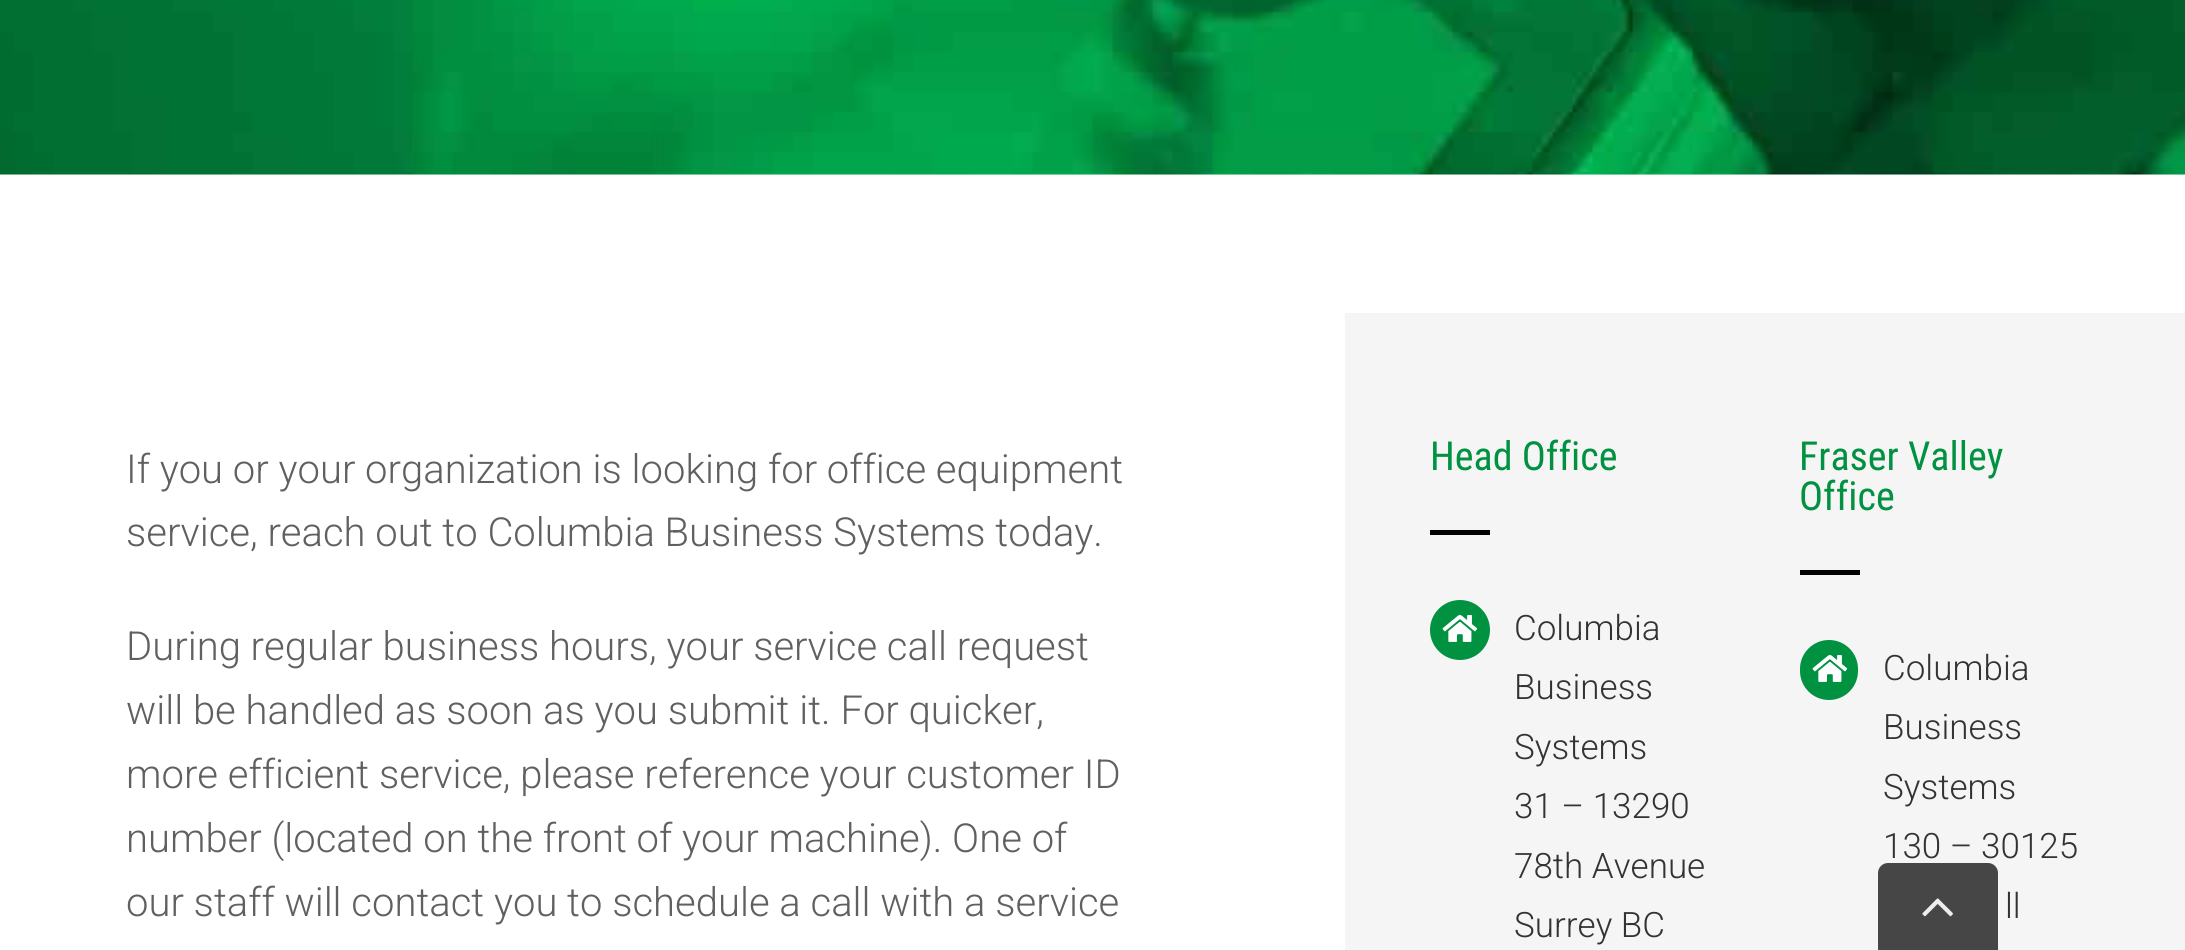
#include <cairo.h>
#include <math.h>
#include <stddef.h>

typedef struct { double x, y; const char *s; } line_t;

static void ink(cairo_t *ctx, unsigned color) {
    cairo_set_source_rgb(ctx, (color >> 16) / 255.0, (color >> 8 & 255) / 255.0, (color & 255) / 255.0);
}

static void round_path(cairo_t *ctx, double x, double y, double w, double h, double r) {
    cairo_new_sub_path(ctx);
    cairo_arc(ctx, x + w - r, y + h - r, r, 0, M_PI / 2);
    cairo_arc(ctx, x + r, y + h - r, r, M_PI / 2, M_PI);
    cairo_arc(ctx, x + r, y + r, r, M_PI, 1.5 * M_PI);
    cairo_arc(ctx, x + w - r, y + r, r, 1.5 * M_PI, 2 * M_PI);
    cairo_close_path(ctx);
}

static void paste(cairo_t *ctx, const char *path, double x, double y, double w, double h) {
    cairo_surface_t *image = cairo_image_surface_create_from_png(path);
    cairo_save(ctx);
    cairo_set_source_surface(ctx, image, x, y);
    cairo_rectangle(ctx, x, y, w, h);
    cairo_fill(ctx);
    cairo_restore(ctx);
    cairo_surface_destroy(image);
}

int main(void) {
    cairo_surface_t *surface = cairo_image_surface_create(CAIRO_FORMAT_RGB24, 2185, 950);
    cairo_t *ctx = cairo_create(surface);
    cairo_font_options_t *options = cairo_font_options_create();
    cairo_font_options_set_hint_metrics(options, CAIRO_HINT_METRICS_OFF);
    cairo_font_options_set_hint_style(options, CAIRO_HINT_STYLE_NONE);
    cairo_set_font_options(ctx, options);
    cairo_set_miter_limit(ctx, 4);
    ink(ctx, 0xFFFFFF);
    cairo_paint(ctx);
    ink(ctx, 0xF6F6F6);
    cairo_rectangle(ctx, 0, 174, 2185, 1);
    cairo_fill(ctx);
    paste(ctx, "media/1.png", 0, 0, 2185, 175);
    cairo_select_font_face(ctx, "Roboto Light", CAIRO_FONT_SLANT_NORMAL, CAIRO_FONT_WEIGHT_NORMAL);
    cairo_set_font_size(ctx, 40);
    ink(ctx, 0x606060);
    {
        static const line_t items[] = {
            {126, 483, "If you or your organization is looking for office equipment"},
            {126, 546, "service, reach out to Columbia Business Systems today."},
            {126, 660, "During regular business hours, your service call request"},
            {126, 724, "will be handled as soon as you submit it. For quicker,"},
            {126, 788, "more efficient service, please reference your customer ID"},
            {126, 852, "number (located on the front of your machine). One of"},
            {126, 916, "our staff will contact you to schedule a call with a service"},
        };
        for (size_t i = 0; i < sizeof items / sizeof *items; i++) {
            cairo_move_to(ctx, items[i].x, items[i].y);
            cairo_show_text(ctx, items[i].s);
        }
    }
    ink(ctx, 0xF5F5F5);
    cairo_rectangle(ctx, 1345, 313, 840, 637);
    cairo_fill(ctx);
    cairo_select_font_face(ctx, "Roboto Condensed", CAIRO_FONT_SLANT_NORMAL, CAIRO_FONT_WEIGHT_NORMAL);
    ink(ctx, 0x009141);
    cairo_move_to(ctx, 1430, 470);
    cairo_show_text(ctx, "Head Office");
    ink(ctx, 0x000000);
    cairo_rectangle(ctx, 1430, 530, 60, 5);
    cairo_fill(ctx);
    ink(ctx, 0x009141);
    cairo_arc(ctx, 1460, 630, 30, 0, 2 * M_PI);
    cairo_fill(ctx);
    paste(ctx, "media/2.png", 1442, 615, 36, 27);
    cairo_select_font_face(ctx, "Roboto Light", CAIRO_FONT_SLANT_NORMAL, CAIRO_FONT_WEIGHT_NORMAL);
    cairo_set_font_size(ctx, 35);
    ink(ctx, 0x333333);
    {
        static const line_t items[] = {
            {1514, 640, "Columbia"},
            {1514, 699, "Business"},
            {1514, 759, "Systems"},
            {1514, 818, "31 – 13290"},
            {1514, 878, "78th Avenue"},
            {1514, 937, "Surrey BC"},
        };
        for (size_t i = 0; i < sizeof items / sizeof *items; i++) {
            cairo_move_to(ctx, items[i].x, items[i].y);
            cairo_show_text(ctx, items[i].s);
        }
    }
    cairo_select_font_face(ctx, "Roboto Condensed", CAIRO_FONT_SLANT_NORMAL, CAIRO_FONT_WEIGHT_NORMAL);
    cairo_set_font_size(ctx, 40);
    ink(ctx, 0x009141);
    cairo_move_to(ctx, 1799, 470);
    cairo_show_text(ctx, "Fraser Valley");
    cairo_move_to(ctx, 1799, 510);
    cairo_show_text(ctx, "Office");
    ink(ctx, 0x000000);
    cairo_rectangle(ctx, 1800, 570, 60, 5);
    cairo_fill(ctx);
    ink(ctx, 0x009141);
    round_path(ctx, 1800, 640, 58, 60, 29);
    cairo_fill(ctx);
    paste(ctx, "media/2.png", 1812, 655, 36, 27);
    cairo_select_font_face(ctx, "Roboto Light", CAIRO_FONT_SLANT_NORMAL, CAIRO_FONT_WEIGHT_NORMAL);
    cairo_set_font_size(ctx, 35);
    ink(ctx, 0x333333);
    {
        static const line_t items[] = {
            {1883, 680, "Columbia"},
            {1883, 739, "Business"},
            {1883, 799, "Systems"},
            {1883, 858, "130 – 30125"},
            {2005, 918, "ll"},
        };
        for (size_t i = 0; i < sizeof items / sizeof *items; i++) {
            cairo_move_to(ctx, items[i].x, items[i].y);
            cairo_show_text(ctx, items[i].s);
        }
    }
    cairo_set_source_rgba(ctx, 0.2, 0.2, 0.2, 0.9);
    cairo_new_path(ctx);
    cairo_move_to(ctx, 1888, 863);
    cairo_line_to(ctx, 1988, 863);
    cairo_curve_to(ctx, 1993.5, 863, 1998, 867.5, 1998, 873);
    cairo_line_to(ctx, 1998, 950);
    cairo_line_to(ctx, 1878, 950);
    cairo_line_to(ctx, 1878, 873);
    cairo_curve_to(ctx, 1878, 867.5, 1882.5, 863, 1888, 863);
    cairo_close_path(ctx);
    cairo_fill(ctx);
    paste(ctx, "media/3.png", 1922, 898, 31, 19);
    cairo_surface_write_to_png(surface, "image.png");
    cairo_font_options_destroy(options);
    cairo_destroy(ctx);
    cairo_surface_destroy(surface);
    return 0;
}
